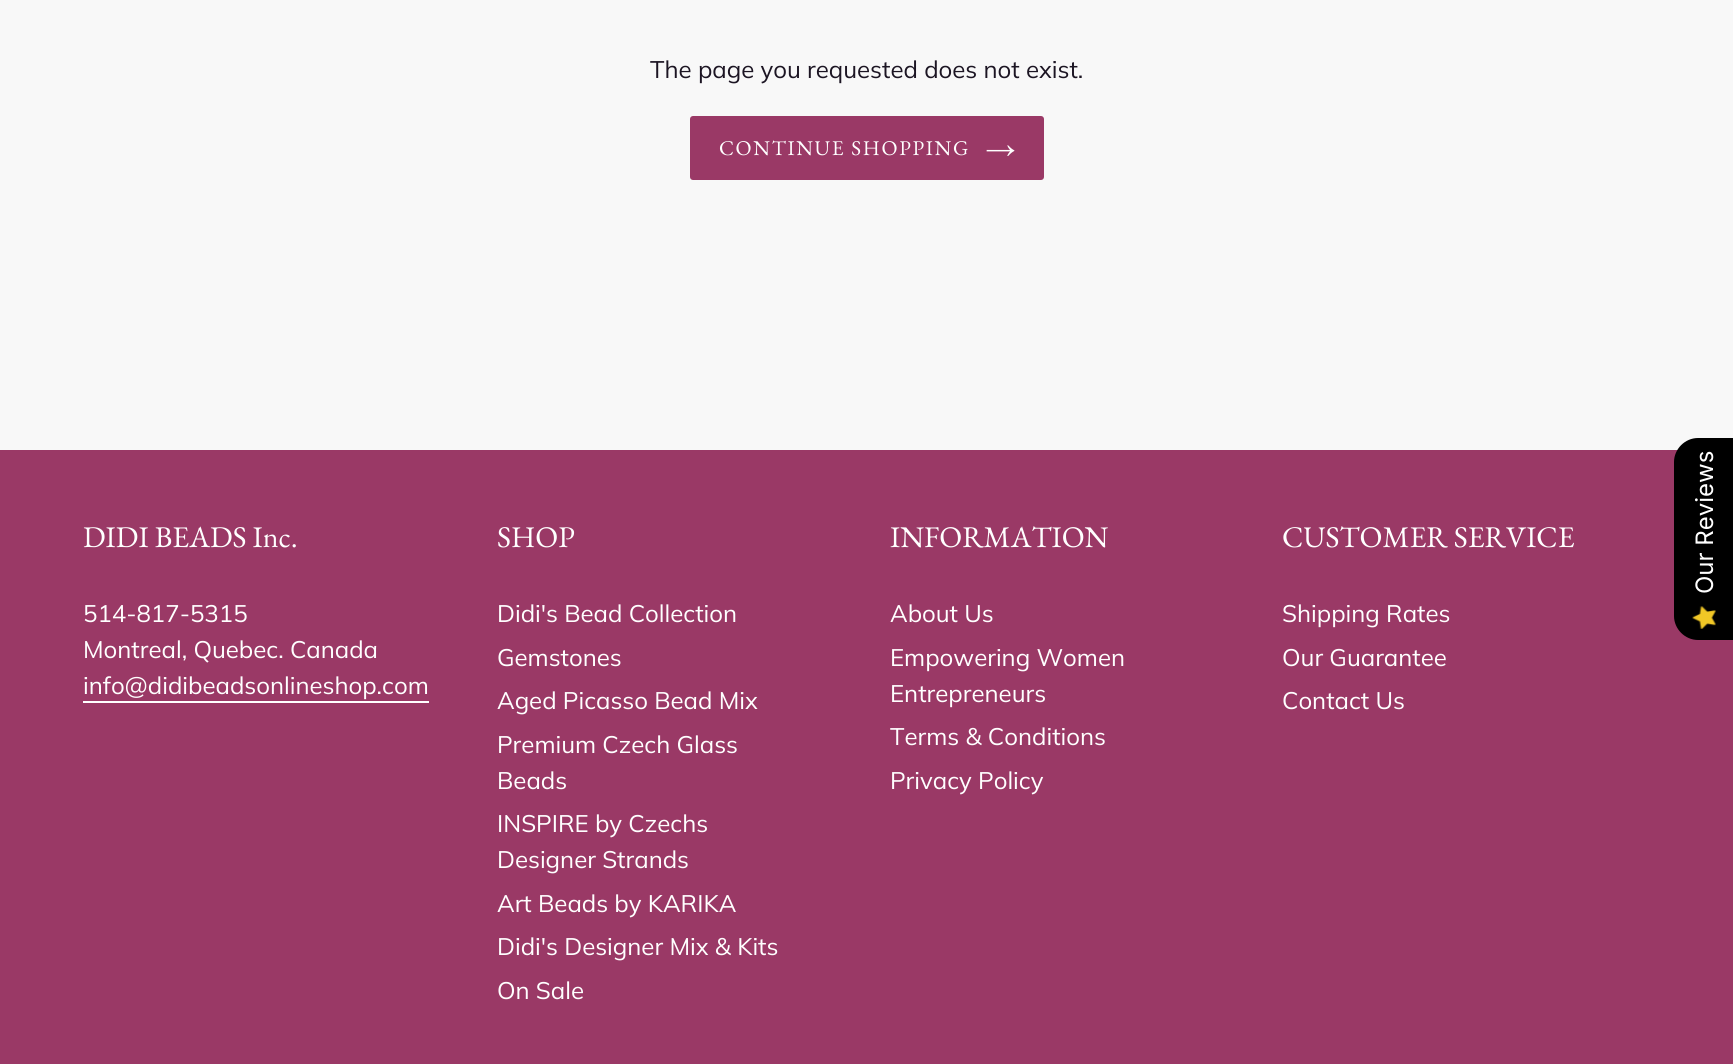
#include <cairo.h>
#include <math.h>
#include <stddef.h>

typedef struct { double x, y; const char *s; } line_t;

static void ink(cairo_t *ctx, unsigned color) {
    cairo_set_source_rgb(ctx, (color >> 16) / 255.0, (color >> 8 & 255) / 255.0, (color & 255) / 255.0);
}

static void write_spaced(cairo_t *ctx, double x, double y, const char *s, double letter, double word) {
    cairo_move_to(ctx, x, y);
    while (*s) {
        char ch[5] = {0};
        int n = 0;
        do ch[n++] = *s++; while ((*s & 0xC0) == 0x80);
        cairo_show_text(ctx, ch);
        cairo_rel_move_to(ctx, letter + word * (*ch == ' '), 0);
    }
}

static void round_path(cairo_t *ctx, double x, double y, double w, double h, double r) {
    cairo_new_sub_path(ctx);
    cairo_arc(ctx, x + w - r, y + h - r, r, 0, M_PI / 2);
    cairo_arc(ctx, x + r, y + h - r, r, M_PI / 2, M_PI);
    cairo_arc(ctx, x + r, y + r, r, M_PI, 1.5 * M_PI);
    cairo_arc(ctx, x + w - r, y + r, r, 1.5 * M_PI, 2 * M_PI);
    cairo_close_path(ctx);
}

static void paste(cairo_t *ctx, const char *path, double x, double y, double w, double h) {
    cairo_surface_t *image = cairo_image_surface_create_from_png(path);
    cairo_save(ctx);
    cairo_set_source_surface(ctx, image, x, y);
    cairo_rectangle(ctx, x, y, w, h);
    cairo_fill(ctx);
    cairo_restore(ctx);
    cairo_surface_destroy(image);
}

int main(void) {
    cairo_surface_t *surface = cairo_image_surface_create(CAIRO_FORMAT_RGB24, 1733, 1064);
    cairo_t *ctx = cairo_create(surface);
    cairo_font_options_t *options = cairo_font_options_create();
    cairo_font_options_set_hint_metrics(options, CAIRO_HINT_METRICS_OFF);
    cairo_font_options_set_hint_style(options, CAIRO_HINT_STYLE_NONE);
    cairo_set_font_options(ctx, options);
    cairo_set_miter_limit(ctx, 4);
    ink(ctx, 0xF8F8F8);
    cairo_paint(ctx);
    cairo_select_font_face(ctx, "Muli", CAIRO_FONT_SLANT_NORMAL, CAIRO_FONT_WEIGHT_NORMAL);
    cairo_set_font_size(ctx, 24);
    ink(ctx, 0x1C1523);
    cairo_move_to(ctx, 650, 78);
    cairo_show_text(ctx, "The page you requested does not exist.");
    ink(ctx, 0x9A3966);
    round_path(ctx, 690, 116, 354, 64, 3);
    cairo_fill(ctx);
    cairo_select_font_face(ctx, "EB Garamond", CAIRO_FONT_SLANT_NORMAL, CAIRO_FONT_WEIGHT_NORMAL);
    cairo_set_font_size(ctx, 21);
    ink(ctx, 0xFFFFFF);
    write_spaced(ctx, 719, 155, "CONTINUE SHOPPING", 1.7, 0);
    paste(ctx, "media/1.png", 986, 145, 29, 11);
    ink(ctx, 0x9A3966);
    cairo_rectangle(ctx, 0, 450, 1733, 614);
    cairo_fill(ctx);
    cairo_set_font_size(ctx, 30);
    ink(ctx, 0xFFFFFF);
    cairo_move_to(ctx, 83, 547);
    cairo_show_text(ctx, "DIDI BEADS Inc.");
    cairo_select_font_face(ctx, "Muli", CAIRO_FONT_SLANT_NORMAL, CAIRO_FONT_WEIGHT_NORMAL);
    cairo_set_font_size(ctx, 24);
    {
        static const line_t items[] = {
            {83, 622, "514-817-5315"},
            {83, 658, "Montreal, Quebec. Canada"},
            {83, 694, "info@didibeadsonlineshop.com"},
        };
        for (size_t i = 0; i < sizeof items / sizeof *items; i++) {
            cairo_move_to(ctx, items[i].x, items[i].y);
            cairo_show_text(ctx, items[i].s);
        }
    }
    cairo_rectangle(ctx, 83, 701, 346, 2);
    cairo_fill(ctx);
    cairo_select_font_face(ctx, "EB Garamond", CAIRO_FONT_SLANT_NORMAL, CAIRO_FONT_WEIGHT_NORMAL);
    cairo_set_font_size(ctx, 30);
    cairo_move_to(ctx, 497, 547);
    cairo_show_text(ctx, "SHOP");
    cairo_select_font_face(ctx, "Muli", CAIRO_FONT_SLANT_NORMAL, CAIRO_FONT_WEIGHT_NORMAL);
    cairo_set_font_size(ctx, 24);
    {
        static const line_t items[] = {
            {497, 622, "Didi's Bead Collection"},
            {497, 666, "Gemstones"},
            {497, 709, "Aged Picasso Bead Mix"},
            {497, 753, "Premium Czech Glass"},
            {497, 789, "Beads"},
            {497, 832, "INSPIRE by Czechs"},
            {497, 868, "Designer Strands"},
            {497, 912, "Art Beads by KARIKA"},
            {497, 955, "Didi's Designer Mix & Kits"},
            {497, 999, "On Sale"},
        };
        for (size_t i = 0; i < sizeof items / sizeof *items; i++) {
            cairo_move_to(ctx, items[i].x, items[i].y);
            cairo_show_text(ctx, items[i].s);
        }
    }
    cairo_select_font_face(ctx, "EB Garamond", CAIRO_FONT_SLANT_NORMAL, CAIRO_FONT_WEIGHT_NORMAL);
    cairo_set_font_size(ctx, 30);
    cairo_move_to(ctx, 890, 547);
    cairo_show_text(ctx, "INFORMATION");
    cairo_select_font_face(ctx, "Muli", CAIRO_FONT_SLANT_NORMAL, CAIRO_FONT_WEIGHT_NORMAL);
    cairo_set_font_size(ctx, 24);
    {
        static const line_t items[] = {
            {890, 622, "About Us"},
            {890, 666, "Empowering Women"},
            {890, 702, "Entrepreneurs"},
            {890, 745, "Terms & Conditions"},
            {890, 789, "Privacy Policy"},
        };
        for (size_t i = 0; i < sizeof items / sizeof *items; i++) {
            cairo_move_to(ctx, items[i].x, items[i].y);
            cairo_show_text(ctx, items[i].s);
        }
    }
    cairo_select_font_face(ctx, "EB Garamond", CAIRO_FONT_SLANT_NORMAL, CAIRO_FONT_WEIGHT_NORMAL);
    cairo_set_font_size(ctx, 30);
    cairo_move_to(ctx, 1282, 547);
    cairo_show_text(ctx, "CUSTOMER SERVICE");
    cairo_select_font_face(ctx, "Muli", CAIRO_FONT_SLANT_NORMAL, CAIRO_FONT_WEIGHT_NORMAL);
    cairo_set_font_size(ctx, 24);
    {
        static const line_t items[] = {
            {1282, 622, "Shipping Rates"},
            {1282, 666, "Our Guarantee"},
            {1282, 709, "Contact Us"},
        };
        for (size_t i = 0; i < sizeof items / sizeof *items; i++) {
            cairo_move_to(ctx, items[i].x, items[i].y);
            cairo_show_text(ctx, items[i].s);
        }
    }
    ink(ctx, 0x000000);
    cairo_new_path(ctx);
    cairo_move_to(ctx, 1674, 616);
    cairo_line_to(ctx, 1674, 462);
    cairo_curve_to(ctx, 1674, 449, 1685, 438, 1698, 438);
    cairo_line_to(ctx, 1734, 438);
    cairo_line_to(ctx, 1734, 640);
    cairo_line_to(ctx, 1698, 640);
    cairo_curve_to(ctx, 1685, 640, 1674, 629, 1674, 616);
    cairo_close_path(ctx);
    cairo_fill(ctx);
    cairo_select_font_face(ctx, "Inter", CAIRO_FONT_SLANT_NORMAL, CAIRO_FONT_WEIGHT_NORMAL);
    ink(ctx, 0xFFFFFF);
    cairo_save(ctx);
    cairo_translate(ctx, 1713, 594);
    cairo_rotate(ctx, -90 * M_PI / 180);
    cairo_move_to(ctx, 0, 0);
    cairo_show_text(ctx, "Our Reviews");
    cairo_restore(ctx);
    paste(ctx, "media/2.png", 1692, 606, 24, 23);
    cairo_surface_write_to_png(surface, "image.png");
    cairo_font_options_destroy(options);
    cairo_destroy(ctx);
    cairo_surface_destroy(surface);
    return 0;
}
